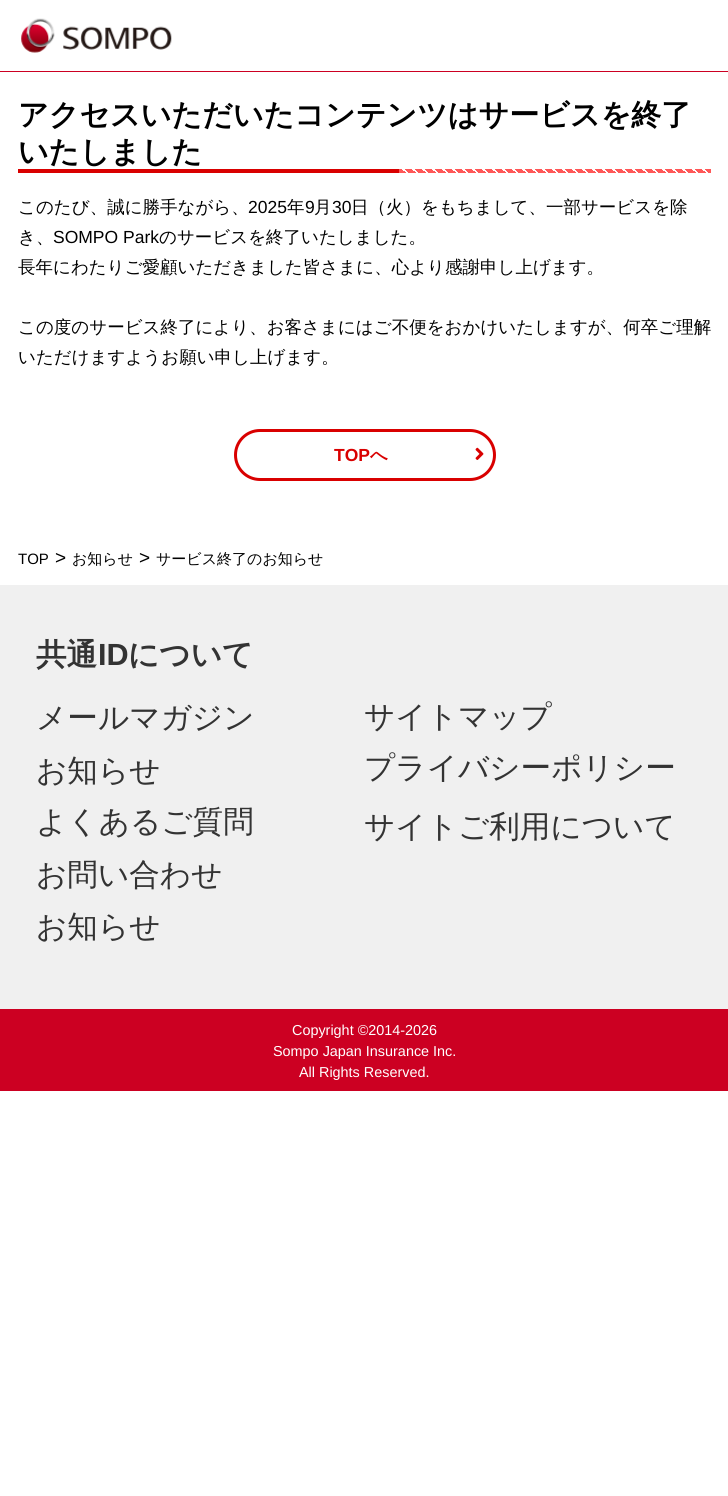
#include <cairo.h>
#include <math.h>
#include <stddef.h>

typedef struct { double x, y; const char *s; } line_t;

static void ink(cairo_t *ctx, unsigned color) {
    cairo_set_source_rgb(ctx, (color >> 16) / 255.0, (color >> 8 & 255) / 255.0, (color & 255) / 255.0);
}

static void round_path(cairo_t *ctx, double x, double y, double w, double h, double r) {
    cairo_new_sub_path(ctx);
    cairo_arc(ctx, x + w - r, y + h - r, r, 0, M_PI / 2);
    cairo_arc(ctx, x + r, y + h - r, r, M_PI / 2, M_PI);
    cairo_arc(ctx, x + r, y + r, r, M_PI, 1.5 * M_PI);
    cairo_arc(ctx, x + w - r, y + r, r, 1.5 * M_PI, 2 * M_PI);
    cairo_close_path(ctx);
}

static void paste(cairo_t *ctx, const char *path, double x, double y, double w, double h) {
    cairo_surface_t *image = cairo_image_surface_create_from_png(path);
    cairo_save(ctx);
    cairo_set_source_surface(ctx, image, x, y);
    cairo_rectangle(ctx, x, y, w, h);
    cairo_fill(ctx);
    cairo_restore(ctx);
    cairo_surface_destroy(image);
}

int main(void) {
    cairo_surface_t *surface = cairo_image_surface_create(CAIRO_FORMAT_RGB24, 728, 1496);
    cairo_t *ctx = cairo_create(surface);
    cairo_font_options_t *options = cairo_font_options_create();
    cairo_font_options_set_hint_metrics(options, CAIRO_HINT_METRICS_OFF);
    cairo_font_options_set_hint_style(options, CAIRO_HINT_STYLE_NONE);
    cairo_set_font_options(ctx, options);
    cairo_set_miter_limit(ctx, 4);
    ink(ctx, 0xFFFFFF);
    cairo_paint(ctx);
    ink(ctx, 0xCC0022);
    cairo_rectangle(ctx, 0, 71, 728, 1);
    cairo_fill(ctx);
    paste(ctx, "media/1.png", 21, 18, 151, 35);
    ink(ctx, 0xD90000);
    cairo_rectangle(ctx, 18, 169, 381, 4);
    cairo_fill(ctx);
    cairo_select_font_face(ctx, "WenQuanYi Zen Hei", CAIRO_FONT_SLANT_NORMAL, CAIRO_FONT_WEIGHT_BOLD);
    cairo_set_font_size(ctx, 30);
    ink(ctx, 0x000000);
    cairo_move_to(ctx, 18, 125);
    cairo_show_text(ctx, "アクセスいただいたコンテンツはサービスを終了");
    cairo_move_to(ctx, 18, 162);
    cairo_show_text(ctx, "いたしました");
    paste(ctx, "media/2.png", 399, 169, 312, 4);
    cairo_select_font_face(ctx, "WenQuanYi Zen Hei Medium", CAIRO_FONT_SLANT_NORMAL, CAIRO_FONT_WEIGHT_NORMAL);
    cairo_set_font_size(ctx, 17.5);
    cairo_move_to(ctx, 18, 213);
    cairo_show_text(ctx, "このたび、誠に勝手ながら、");
    cairo_select_font_face(ctx, "Liberation Sans", CAIRO_FONT_SLANT_NORMAL, CAIRO_FONT_WEIGHT_NORMAL);
    cairo_move_to(ctx, 248, 213);
    cairo_show_text(ctx, "2025");
    cairo_select_font_face(ctx, "WenQuanYi Zen Hei Medium", CAIRO_FONT_SLANT_NORMAL, CAIRO_FONT_WEIGHT_NORMAL);
    cairo_move_to(ctx, 287, 213);
    cairo_show_text(ctx, "年");
    cairo_select_font_face(ctx, "Liberation Sans", CAIRO_FONT_SLANT_NORMAL, CAIRO_FONT_WEIGHT_NORMAL);
    cairo_move_to(ctx, 305, 213);
    cairo_show_text(ctx, "9");
    cairo_select_font_face(ctx, "WenQuanYi Zen Hei Medium", CAIRO_FONT_SLANT_NORMAL, CAIRO_FONT_WEIGHT_NORMAL);
    cairo_move_to(ctx, 314, 213);
    cairo_show_text(ctx, "月");
    cairo_select_font_face(ctx, "Liberation Sans", CAIRO_FONT_SLANT_NORMAL, CAIRO_FONT_WEIGHT_NORMAL);
    cairo_move_to(ctx, 332, 213);
    cairo_show_text(ctx, "30");
    cairo_select_font_face(ctx, "WenQuanYi Zen Hei Medium", CAIRO_FONT_SLANT_NORMAL, CAIRO_FONT_WEIGHT_NORMAL);
    cairo_move_to(ctx, 351, 213);
    cairo_show_text(ctx, "日（火）をもちまして、一部サービスを除");
    cairo_move_to(ctx, 18, 243);
    cairo_show_text(ctx, "き、");
    cairo_select_font_face(ctx, "Liberation Sans", CAIRO_FONT_SLANT_NORMAL, CAIRO_FONT_WEIGHT_NORMAL);
    cairo_move_to(ctx, 53, 243);
    cairo_show_text(ctx, "SOMPO Park");
    cairo_select_font_face(ctx, "WenQuanYi Zen Hei Medium", CAIRO_FONT_SLANT_NORMAL, CAIRO_FONT_WEIGHT_NORMAL);
    {
        static const line_t items[] = {
            {159, 243, "のサービスを終了いたしました。"},
            {18, 273, "長年にわたりご愛顧いただきました皆さまに、心より感謝申し上げます。"},
            {18, 333, "この度のサービス終了により、お客さまにはご不便をおかけいたしますが、何卒ご理解"},
            {18, 363, "いただけますようお願い申し上げます。"},
        };
        for (size_t i = 0; i < sizeof items / sizeof *items; i++) {
            cairo_move_to(ctx, items[i].x, items[i].y);
            cairo_show_text(ctx, items[i].s);
        }
    }
    round_path(ctx, 235.5, 430.5, 259, 49, 24.5);
    ink(ctx, 0xD90000);
    cairo_set_line_width(ctx, 3);
    cairo_stroke(ctx);
    cairo_select_font_face(ctx, "Liberation Sans", CAIRO_FONT_SLANT_NORMAL, CAIRO_FONT_WEIGHT_BOLD);
    cairo_move_to(ctx, 334, 461);
    cairo_show_text(ctx, "TOP");
    cairo_select_font_face(ctx, "WenQuanYi Zen Hei", CAIRO_FONT_SLANT_NORMAL, CAIRO_FONT_WEIGHT_BOLD);
    cairo_move_to(ctx, 370, 461);
    cairo_show_text(ctx, "へ");
    paste(ctx, "media/3.png", 475, 447, 9, 13);
    cairo_select_font_face(ctx, "Liberation Sans", CAIRO_FONT_SLANT_NORMAL, CAIRO_FONT_WEIGHT_NORMAL);
    cairo_set_font_size(ctx, 15);
    ink(ctx, 0x000000);
    cairo_move_to(ctx, 18, 564);
    cairo_show_text(ctx, "TOP");
    cairo_set_font_size(ctx, 19);
    cairo_move_to(ctx, 55, 564);
    cairo_show_text(ctx, ">");
    cairo_select_font_face(ctx, "WenQuanYi Zen Hei Medium", CAIRO_FONT_SLANT_NORMAL, CAIRO_FONT_WEIGHT_NORMAL);
    cairo_set_font_size(ctx, 15);
    cairo_move_to(ctx, 72, 564);
    cairo_show_text(ctx, "お知らせ");
    cairo_select_font_face(ctx, "Liberation Sans", CAIRO_FONT_SLANT_NORMAL, CAIRO_FONT_WEIGHT_NORMAL);
    cairo_set_font_size(ctx, 19);
    cairo_move_to(ctx, 139, 564);
    cairo_show_text(ctx, ">");
    cairo_select_font_face(ctx, "WenQuanYi Zen Hei Medium", CAIRO_FONT_SLANT_NORMAL, CAIRO_FONT_WEIGHT_NORMAL);
    cairo_set_font_size(ctx, 15);
    cairo_move_to(ctx, 156, 564);
    cairo_show_text(ctx, "サービス終了のお知らせ");
    ink(ctx, 0xF0F0F0);
    cairo_rectangle(ctx, 0, 585, 728, 424);
    cairo_fill(ctx);
    cairo_select_font_face(ctx, "WenQuanYi Zen Hei", CAIRO_FONT_SLANT_NORMAL, CAIRO_FONT_WEIGHT_BOLD);
    cairo_set_font_size(ctx, 30.6);
    ink(ctx, 0x333333);
    cairo_move_to(ctx, 36, 665);
    cairo_show_text(ctx, "共通");
    cairo_select_font_face(ctx, "Liberation Sans", CAIRO_FONT_SLANT_NORMAL, CAIRO_FONT_WEIGHT_BOLD);
    cairo_move_to(ctx, 98, 665);
    cairo_show_text(ctx, "ID");
    cairo_select_font_face(ctx, "WenQuanYi Zen Hei", CAIRO_FONT_SLANT_NORMAL, CAIRO_FONT_WEIGHT_BOLD);
    cairo_move_to(ctx, 128, 665);
    cairo_show_text(ctx, "について");
    cairo_select_font_face(ctx, "WenQuanYi Zen Hei Medium", CAIRO_FONT_SLANT_NORMAL, CAIRO_FONT_WEIGHT_NORMAL);
    {
        static const line_t items[] = {
            {36, 728, "メールマガジン"},
            {36, 781, "お知らせ"},
            {36, 832, "よくあるご質問"},
            {36, 885, "お問い合わせ"},
            {36, 937, "お知らせ"},
            {364, 727, "サイトマップ"},
            {364, 778, "プライバシーポリシー"},
            {364, 837, "サイトご利用について"},
        };
        for (size_t i = 0; i < sizeof items / sizeof *items; i++) {
            cairo_move_to(ctx, items[i].x, items[i].y);
            cairo_show_text(ctx, items[i].s);
        }
    }
    ink(ctx, 0xCC0022);
    cairo_rectangle(ctx, 0, 1009, 728, 82);
    cairo_fill(ctx);
    cairo_select_font_face(ctx, "Liberation Sans", CAIRO_FONT_SLANT_NORMAL, CAIRO_FONT_WEIGHT_NORMAL);
    cairo_set_font_size(ctx, 14.4);
    ink(ctx, 0xFFFFFF);
    {
        static const line_t items[] = {
            {292, 1035, "Copyright ©2014-2026"},
            {273, 1056, "Sompo Japan Insurance Inc."},
            {299, 1077, "All Rights Reserved."},
        };
        for (size_t i = 0; i < sizeof items / sizeof *items; i++) {
            cairo_move_to(ctx, items[i].x, items[i].y);
            cairo_show_text(ctx, items[i].s);
        }
    }
    cairo_surface_write_to_png(surface, "image.png");
    cairo_font_options_destroy(options);
    cairo_destroy(ctx);
    cairo_surface_destroy(surface);
    return 0;
}
